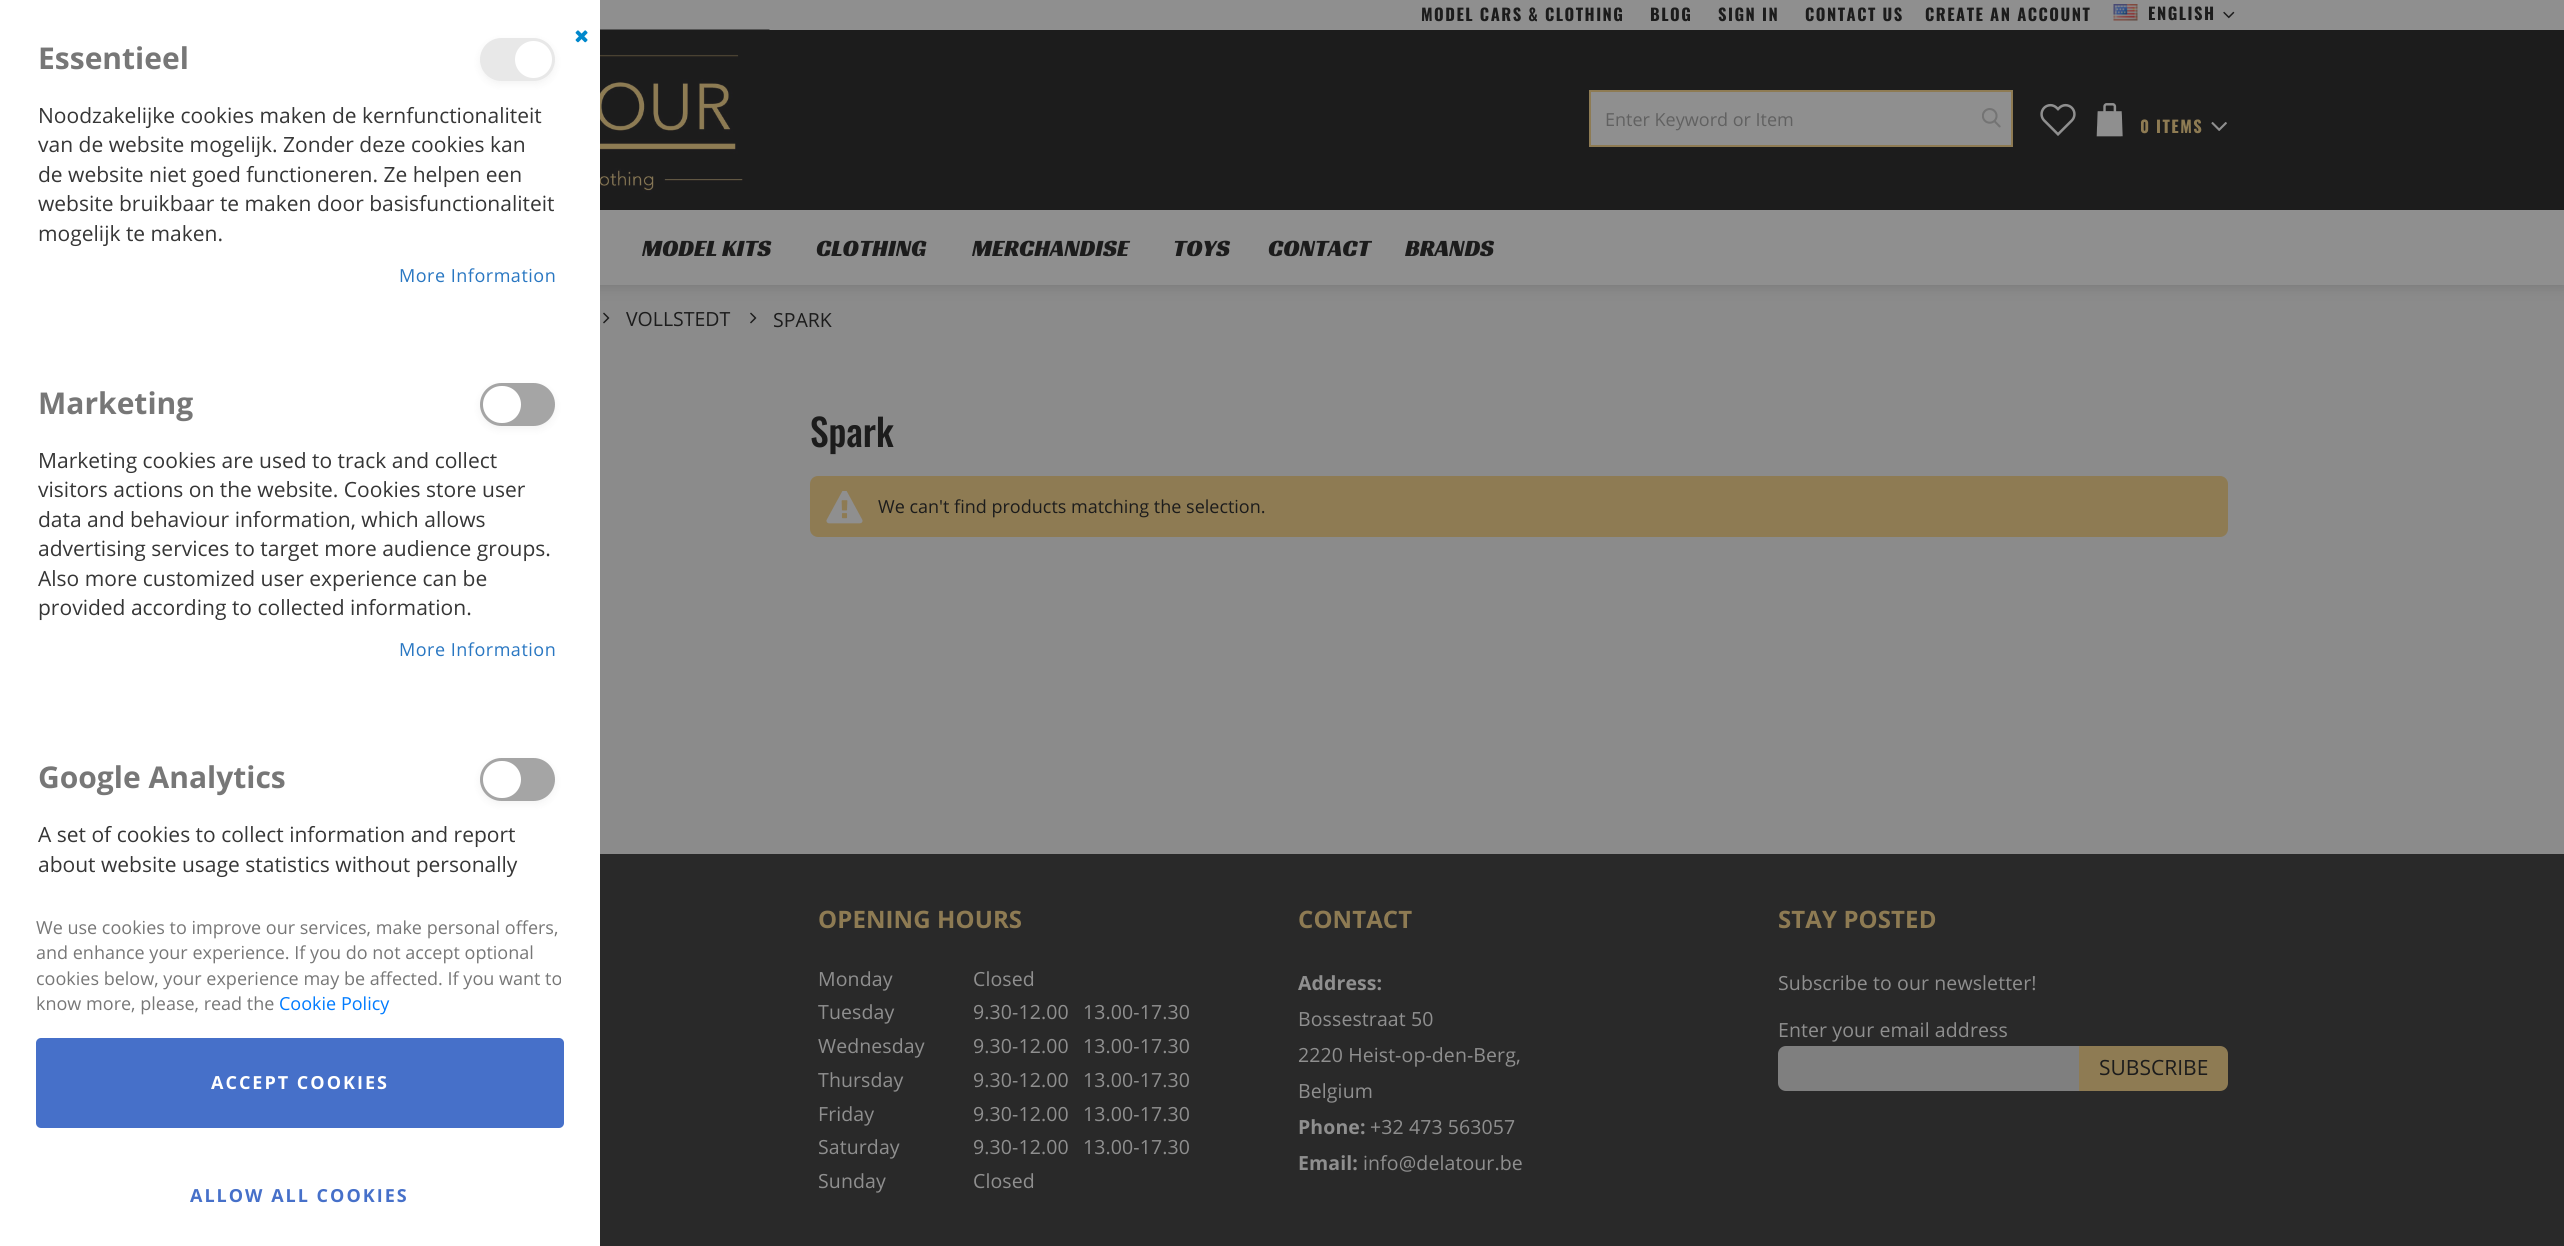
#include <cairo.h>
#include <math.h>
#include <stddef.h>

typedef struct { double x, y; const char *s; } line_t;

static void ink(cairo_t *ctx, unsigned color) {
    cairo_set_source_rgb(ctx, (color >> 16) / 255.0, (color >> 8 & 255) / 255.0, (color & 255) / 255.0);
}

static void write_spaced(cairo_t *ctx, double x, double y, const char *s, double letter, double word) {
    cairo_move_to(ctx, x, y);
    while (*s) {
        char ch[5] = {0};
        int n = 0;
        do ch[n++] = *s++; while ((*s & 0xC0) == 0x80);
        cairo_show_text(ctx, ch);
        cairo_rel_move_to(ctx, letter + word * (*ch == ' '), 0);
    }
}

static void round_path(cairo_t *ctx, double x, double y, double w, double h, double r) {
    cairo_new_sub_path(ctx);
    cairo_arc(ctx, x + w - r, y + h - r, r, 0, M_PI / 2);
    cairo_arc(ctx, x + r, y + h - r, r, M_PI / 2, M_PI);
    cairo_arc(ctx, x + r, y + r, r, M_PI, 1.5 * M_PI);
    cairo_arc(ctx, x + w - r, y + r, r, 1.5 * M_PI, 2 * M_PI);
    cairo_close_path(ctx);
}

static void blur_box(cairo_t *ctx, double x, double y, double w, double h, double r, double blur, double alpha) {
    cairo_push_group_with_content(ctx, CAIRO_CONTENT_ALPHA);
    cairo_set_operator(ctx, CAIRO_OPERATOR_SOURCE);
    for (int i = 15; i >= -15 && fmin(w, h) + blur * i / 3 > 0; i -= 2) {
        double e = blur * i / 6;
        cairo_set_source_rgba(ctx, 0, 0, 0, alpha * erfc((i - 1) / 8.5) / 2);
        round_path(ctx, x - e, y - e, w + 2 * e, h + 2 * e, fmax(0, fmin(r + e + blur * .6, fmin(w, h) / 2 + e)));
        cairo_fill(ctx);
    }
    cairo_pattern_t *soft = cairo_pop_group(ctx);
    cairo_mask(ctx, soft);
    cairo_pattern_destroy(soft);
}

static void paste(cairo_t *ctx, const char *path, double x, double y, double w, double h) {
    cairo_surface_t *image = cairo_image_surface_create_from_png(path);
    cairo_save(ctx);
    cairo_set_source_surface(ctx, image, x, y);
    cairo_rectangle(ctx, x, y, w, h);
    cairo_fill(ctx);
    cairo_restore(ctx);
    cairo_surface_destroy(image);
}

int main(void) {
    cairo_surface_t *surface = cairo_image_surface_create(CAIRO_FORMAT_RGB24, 2564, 1246);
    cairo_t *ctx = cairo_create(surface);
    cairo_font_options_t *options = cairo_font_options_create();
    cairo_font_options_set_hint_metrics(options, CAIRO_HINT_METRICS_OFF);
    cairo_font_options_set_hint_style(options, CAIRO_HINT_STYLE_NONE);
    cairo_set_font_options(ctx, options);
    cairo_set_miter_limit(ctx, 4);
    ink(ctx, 0x8B8B8B);
    cairo_paint(ctx);
    ink(ctx, 0x1C1C1C);
    cairo_rectangle(ctx, 600, 30, 1964, 180);
    cairo_fill(ctx);
    ink(ctx, 0x1C1C1C);
    blur_box(ctx, 0, 210, 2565, 75, 0, 7.5, 0.2);
    ink(ctx, 0xFFFFFF);
    cairo_rectangle(ctx, 0, 0, 600, 1246);
    cairo_fill(ctx);
    paste(ctx, "media/1.png", 575, 30, 13, 13);
    cairo_select_font_face(ctx, "Open Sans", CAIRO_FONT_SLANT_NORMAL, CAIRO_FONT_WEIGHT_BOLD);
    cairo_set_font_size(ctx, 30);
    ink(ctx, 0x777777);
    cairo_move_to(ctx, 38, 69);
    cairo_show_text(ctx, "Essentieel");
    ink(ctx, 0x000000);
    blur_box(ctx, 480, 41, 75, 43, 21.5, 4, 0.05);
    ink(ctx, 0xE8E8E8);
    round_path(ctx, 480, 38, 75, 43, 21.5);
    cairo_fill(ctx);
    ink(ctx, 0xFFFFFF);
    cairo_arc(ctx, 533.5, 59.5, 18.5, 0, 2 * M_PI);
    cairo_fill(ctx);
    cairo_select_font_face(ctx, "Open Sans", CAIRO_FONT_SLANT_NORMAL, CAIRO_FONT_WEIGHT_NORMAL);
    cairo_set_font_size(ctx, 21);
    ink(ctx, 0x363636);
    {
        static const line_t items[] = {
            {38, 123, "Noodzakelijke cookies maken de kernfunctionaliteit"},
            {38, 152, "van de website mogelijk. Zonder deze cookies kan"},
            {38, 182, "de website niet goed functioneren. Ze helpen een"},
            {38, 211, "website bruikbaar te maken door basisfunctionaliteit"},
            {38, 241, "mogelijk te maken."},
        };
        for (size_t i = 0; i < sizeof items / sizeof *items; i++) {
            cairo_move_to(ctx, items[i].x, items[i].y);
            cairo_show_text(ctx, items[i].s);
        }
    }
    cairo_set_font_size(ctx, 18);
    ink(ctx, 0x2977C2);
    write_spaced(ctx, 399, 282, "More Information", 0.5, 0);
    cairo_select_font_face(ctx, "Open Sans", CAIRO_FONT_SLANT_NORMAL, CAIRO_FONT_WEIGHT_BOLD);
    cairo_set_font_size(ctx, 30);
    ink(ctx, 0x777777);
    cairo_move_to(ctx, 38, 414);
    cairo_show_text(ctx, "Marketing");
    ink(ctx, 0x000000);
    blur_box(ctx, 480, 386, 75, 43, 21.5, 4, 0.05);
    ink(ctx, 0xA5A5A5);
    round_path(ctx, 480, 383, 75, 43, 21.5);
    cairo_fill(ctx);
    ink(ctx, 0xFFFFFF);
    round_path(ctx, 483, 386, 38, 37, 18.5);
    cairo_fill(ctx);
    cairo_select_font_face(ctx, "Open Sans", CAIRO_FONT_SLANT_NORMAL, CAIRO_FONT_WEIGHT_NORMAL);
    cairo_set_font_size(ctx, 21);
    ink(ctx, 0x363636);
    {
        static const line_t items[] = {
            {38, 468, "Marketing cookies are used to track and collect"},
            {38, 497, "visitors actions on the website. Cookies store user"},
            {38, 527, "data and behaviour information, which allows"},
            {38, 556, "advertising services to target more audience groups."},
            {38, 586, "Also more customized user experience can be"},
            {38, 615, "provided according to collected information."},
        };
        for (size_t i = 0; i < sizeof items / sizeof *items; i++) {
            cairo_move_to(ctx, items[i].x, items[i].y);
            cairo_show_text(ctx, items[i].s);
        }
    }
    cairo_set_font_size(ctx, 18);
    ink(ctx, 0x2977C2);
    write_spaced(ctx, 399, 656, "More Information", 0.5, 0);
    cairo_select_font_face(ctx, "Open Sans", CAIRO_FONT_SLANT_NORMAL, CAIRO_FONT_WEIGHT_BOLD);
    cairo_set_font_size(ctx, 30);
    ink(ctx, 0x777777);
    cairo_move_to(ctx, 38, 788);
    cairo_show_text(ctx, "Google Analytics");
    ink(ctx, 0x000000);
    blur_box(ctx, 480, 761, 75, 43, 21.5, 4, 0.05);
    ink(ctx, 0xA5A5A5);
    round_path(ctx, 480, 758, 75, 43, 21.5);
    cairo_fill(ctx);
    ink(ctx, 0xFFFFFF);
    round_path(ctx, 483, 761, 38, 37, 18.5);
    cairo_fill(ctx);
    cairo_select_font_face(ctx, "Open Sans", CAIRO_FONT_SLANT_NORMAL, CAIRO_FONT_WEIGHT_NORMAL);
    cairo_set_font_size(ctx, 21);
    ink(ctx, 0x363636);
    cairo_move_to(ctx, 38, 842);
    cairo_show_text(ctx, "A set of cookies to collect information and report");
    cairo_move_to(ctx, 38, 872);
    cairo_show_text(ctx, "about website usage statistics without personally");
    cairo_set_font_size(ctx, 18);
    ink(ctx, 0x777777);
    {
        static const line_t items[] = {
            {36, 934, "We use cookies to improve our services, make personal offers,"},
            {36, 959, "and enhance your experience. If you do not accept optional"},
            {36, 985, "cookies below, your experience may be affected. If you want to"},
            {36, 1010, "know more, please, read the"},
        };
        for (size_t i = 0; i < sizeof items / sizeof *items; i++) {
            cairo_move_to(ctx, items[i].x, items[i].y);
            cairo_show_text(ctx, items[i].s);
        }
    }
    ink(ctx, 0x007BFF);
    cairo_move_to(ctx, 279, 1010);
    cairo_show_text(ctx, "Cookie Policy");
    ink(ctx, 0x4670C9);
    round_path(ctx, 36, 1038, 528, 90, 5);
    cairo_fill(ctx);
    cairo_select_font_face(ctx, "Open Sans", CAIRO_FONT_SLANT_NORMAL, CAIRO_FONT_WEIGHT_BOLD);
    ink(ctx, 0xFFFFFF);
    write_spaced(ctx, 211, 1089, "ACCEPT COOKIES", 2, 0);
    ink(ctx, 0x4670C9);
    write_spaced(ctx, 190, 1202, "ALLOW ALL COOKIES", 2, 0);
    ink(ctx, 0x8F8F8F);
    cairo_rectangle(ctx, 600, 0, 1964, 30);
    cairo_fill(ctx);
    cairo_select_font_face(ctx, "Oswald", CAIRO_FONT_SLANT_NORMAL, CAIRO_FONT_WEIGHT_BOLD);
    cairo_set_font_size(ctx, 16.5);
    ink(ctx, 0x1C1C1C);
    {
        static const line_t items[] = {
            {1421, 21, "MODEL CARS & CLOTHING"},
            {1650, 21, "BLOG"},
            {1718, 21, "SIGN IN"},
            {1805, 21, "CONTACT US"},
            {1925, 21, "CREATE AN ACCOUNT"},
        };
        for (size_t i = 0; i < sizeof items / sizeof *items; i++) {
            write_spaced(ctx, items[i].x, items[i].y, items[i].s, 1.5, 0);
        }
    }
    paste(ctx, "media/2.png", 2113, 4, 25, 17);
    write_spaced(ctx, 2148, 20, "ENGLISH", 1.5, 0);
    paste(ctx, "media/3.png", 2223, 11, 12, 8);
    paste(ctx, "media/4.png", 600, 29, 170, 164);
    ink(ctx, 0x8F8F8F);
    cairo_rectangle(ctx, 1590, 91, 422, 55);
    cairo_fill_preserve(ctx);
    ink(ctx, 0x8E7B53);
    cairo_stroke(ctx);
    cairo_select_font_face(ctx, "Open Sans", CAIRO_FONT_SLANT_NORMAL, CAIRO_FONT_WEIGHT_NORMAL);
    cairo_set_font_size(ctx, 18);
    ink(ctx, 0x616161);
    cairo_move_to(ctx, 1605, 126);
    cairo_show_text(ctx, "Enter Keyword or Item");
    paste(ctx, "media/5.png", 1982, 108, 19, 20);
    paste(ctx, "media/6.png", 2040, 103, 36, 33);
    paste(ctx, "media/7.png", 2096, 103, 27, 34);
    cairo_save(ctx);
    cairo_rectangle(ctx, 2141, 111, 63, 24);
    cairo_clip(ctx);
    cairo_select_font_face(ctx, "Oswald", CAIRO_FONT_SLANT_NORMAL, CAIRO_FONT_WEIGHT_BOLD);
    cairo_set_font_size(ctx, 16.5);
    ink(ctx, 0x8E7B53);
    write_spaced(ctx, 2140, 133, "0", 1.5, 0);
    cairo_restore(ctx);
    cairo_select_font_face(ctx, "Oswald", CAIRO_FONT_SLANT_NORMAL, CAIRO_FONT_WEIGHT_BOLD);
    cairo_set_font_size(ctx, 16.5);
    ink(ctx, 0x8E7B53);
    write_spaced(ctx, 2156, 133, "ITEMS", 1.5, 0);
    paste(ctx, "media/8.png", 2211, 122, 16, 9);
    ink(ctx, 0x8F8F8F);
    cairo_rectangle(ctx, 600, 210, 1964, 75);
    cairo_fill(ctx);
    cairo_select_font_face(ctx, "Racing Sans One", CAIRO_FONT_SLANT_NORMAL, CAIRO_FONT_WEIGHT_NORMAL);
    cairo_set_font_size(ctx, 23.75);
    ink(ctx, 0x1C1C1C);
    {
        static const line_t items[] = {
            {642, 256, "MODEL KITS"},
            {816, 256, "CLOTHING"},
            {972, 256, "MERCHANDISE"},
            {1173, 256, "TOYS"},
            {1268, 256, "CONTACT"},
            {1405, 256, "BRANDS"},
        };
        for (size_t i = 0; i < sizeof items / sizeof *items; i++) {
            cairo_move_to(ctx, items[i].x, items[i].y);
            cairo_show_text(ctx, items[i].s);
        }
    }
    paste(ctx, "media/9.png", 603, 312, 7, 12);
    cairo_select_font_face(ctx, "Open Sans", CAIRO_FONT_SLANT_NORMAL, CAIRO_FONT_WEIGHT_NORMAL);
    cairo_set_font_size(ctx, 19.5);
    cairo_move_to(ctx, 626, 326);
    cairo_show_text(ctx, "VOLLSTEDT");
    paste(ctx, "media/9.png", 750, 312, 7, 12);
    cairo_move_to(ctx, 773, 327);
    cairo_show_text(ctx, "SPARK");
    cairo_select_font_face(ctx, "Oswald Medium", CAIRO_FONT_SLANT_NORMAL, CAIRO_FONT_WEIGHT_NORMAL);
    cairo_set_font_size(ctx, 37.5);
    cairo_move_to(ctx, 810, 447);
    cairo_show_text(ctx, "Spark");
    ink(ctx, 0x8E7B53);
    round_path(ctx, 810, 476, 1418, 61, 8);
    cairo_fill(ctx);
    paste(ctx, "media/10.png", 826, 491, 37, 33);
    cairo_select_font_face(ctx, "Open Sans", CAIRO_FONT_SLANT_NORMAL, CAIRO_FONT_WEIGHT_NORMAL);
    cairo_set_font_size(ctx, 18);
    ink(ctx, 0x1C1C1C);
    cairo_move_to(ctx, 878, 513);
    cairo_show_text(ctx, "We can't find products matching the selection.");
    ink(ctx, 0x292929);
    cairo_rectangle(ctx, 600, 854, 1964, 392);
    cairo_fill(ctx);
    cairo_select_font_face(ctx, "Open Sans", CAIRO_FONT_SLANT_NORMAL, CAIRO_FONT_WEIGHT_BOLD);
    cairo_set_font_size(ctx, 24);
    ink(ctx, 0x8E7B53);
    write_spaced(ctx, 818, 928, "OPENING HOURS", 0.1, 0);
    cairo_select_font_face(ctx, "Open Sans", CAIRO_FONT_SLANT_NORMAL, CAIRO_FONT_WEIGHT_NORMAL);
    cairo_set_font_size(ctx, 19.5);
    ink(ctx, 0x8F8F8F);
    {
        static const line_t items[] = {
            {818, 986, "Monday"},
            {973, 986, "Closed"},
            {818, 1019, "Tuesday"},
            {973, 1019, "9.30-12.00"},
            {1083, 1019, "13.00-17.30"},
            {818, 1053, "Wednesday"},
            {973, 1053, "9.30-12.00"},
            {1083, 1053, "13.00-17.30"},
            {818, 1087, "Thursday"},
            {973, 1087, "9.30-12.00"},
            {1083, 1087, "13.00-17.30"},
            {818, 1121, "Friday"},
            {973, 1121, "9.30-12.00"},
            {1083, 1121, "13.00-17.30"},
            {818, 1154, "Saturday"},
            {973, 1154, "9.30-12.00"},
            {1083, 1154, "13.00-17.30"},
            {818, 1188, "Sunday"},
            {973, 1188, "Closed"},
        };
        for (size_t i = 0; i < sizeof items / sizeof *items; i++) {
            write_spaced(ctx, items[i].x, items[i].y, items[i].s, 0.1, 0);
        }
    }
    cairo_select_font_face(ctx, "Open Sans", CAIRO_FONT_SLANT_NORMAL, CAIRO_FONT_WEIGHT_BOLD);
    cairo_set_font_size(ctx, 24);
    ink(ctx, 0x8E7B53);
    write_spaced(ctx, 1298, 928, "CONTACT", 0.1, 0);
    cairo_set_font_size(ctx, 19.5);
    ink(ctx, 0x8F8F8F);
    write_spaced(ctx, 1298, 990, "Address:", 0.1, 0);
    cairo_select_font_face(ctx, "Open Sans", CAIRO_FONT_SLANT_NORMAL, CAIRO_FONT_WEIGHT_NORMAL);
    {
        static const line_t items[] = {
            {1298, 1026, "Bossestraat 50"},
            {1298, 1062, "2220 Heist-op-den-Berg,"},
            {1298, 1098, "Belgium"},
        };
        for (size_t i = 0; i < sizeof items / sizeof *items; i++) {
            write_spaced(ctx, items[i].x, items[i].y, items[i].s, 0.1, 0);
        }
    }
    cairo_select_font_face(ctx, "Open Sans", CAIRO_FONT_SLANT_NORMAL, CAIRO_FONT_WEIGHT_BOLD);
    write_spaced(ctx, 1298, 1134, "Phone:", 0.1, 0);
    cairo_select_font_face(ctx, "Open Sans", CAIRO_FONT_SLANT_NORMAL, CAIRO_FONT_WEIGHT_NORMAL);
    write_spaced(ctx, 1370, 1134, "+32 473 563057", 0.1, 0);
    cairo_select_font_face(ctx, "Open Sans", CAIRO_FONT_SLANT_NORMAL, CAIRO_FONT_WEIGHT_BOLD);
    write_spaced(ctx, 1298, 1170, "Email:", 0.1, 0);
    cairo_select_font_face(ctx, "Open Sans", CAIRO_FONT_SLANT_NORMAL, CAIRO_FONT_WEIGHT_NORMAL);
    write_spaced(ctx, 1363, 1170, "info@delatour.be", 0.1, 0);
    cairo_select_font_face(ctx, "Open Sans", CAIRO_FONT_SLANT_NORMAL, CAIRO_FONT_WEIGHT_BOLD);
    cairo_set_font_size(ctx, 24);
    ink(ctx, 0x8E7B53);
    write_spaced(ctx, 1778, 928, "STAY POSTED", 0.1, 0);
    cairo_select_font_face(ctx, "Open Sans", CAIRO_FONT_SLANT_NORMAL, CAIRO_FONT_WEIGHT_NORMAL);
    cairo_set_font_size(ctx, 19.5);
    ink(ctx, 0x8F8F8F);
    write_spaced(ctx, 1778, 990, "Subscribe to our newsletter!", 0.1, 0);
    write_spaced(ctx, 1778, 1037, "Enter your email address", 0.1, 0);
    ink(ctx, 0x7F7F7F);
    cairo_new_path(ctx);
    cairo_move_to(ctx, 1786, 1046);
    cairo_line_to(ctx, 2079, 1046);
    cairo_line_to(ctx, 2079, 1091);
    cairo_line_to(ctx, 1786, 1091);
    cairo_curve_to(ctx, 1781.5, 1091, 1778, 1087.5, 1778, 1083);
    cairo_line_to(ctx, 1778, 1054);
    cairo_curve_to(ctx, 1778, 1049.5, 1781.5, 1046, 1786, 1046);
    cairo_close_path(ctx);
    cairo_fill(ctx);
    ink(ctx, 0x8E7B53);
    cairo_new_path(ctx);
    cairo_move_to(ctx, 2079, 1046);
    cairo_line_to(ctx, 2220, 1046);
    cairo_curve_to(ctx, 2224.5, 1046, 2228, 1049.5, 2228, 1054);
    cairo_line_to(ctx, 2228, 1083);
    cairo_curve_to(ctx, 2228, 1087.5, 2224.5, 1091, 2220, 1091);
    cairo_line_to(ctx, 2079, 1091);
    cairo_close_path(ctx);
    cairo_fill(ctx);
    cairo_set_font_size(ctx, 21);
    ink(ctx, 0x1C1C1C);
    cairo_move_to(ctx, 2099, 1075);
    cairo_show_text(ctx, "SUBSCRIBE");
    cairo_surface_write_to_png(surface, "image.png");
    cairo_font_options_destroy(options);
    cairo_destroy(ctx);
    cairo_surface_destroy(surface);
    return 0;
}
